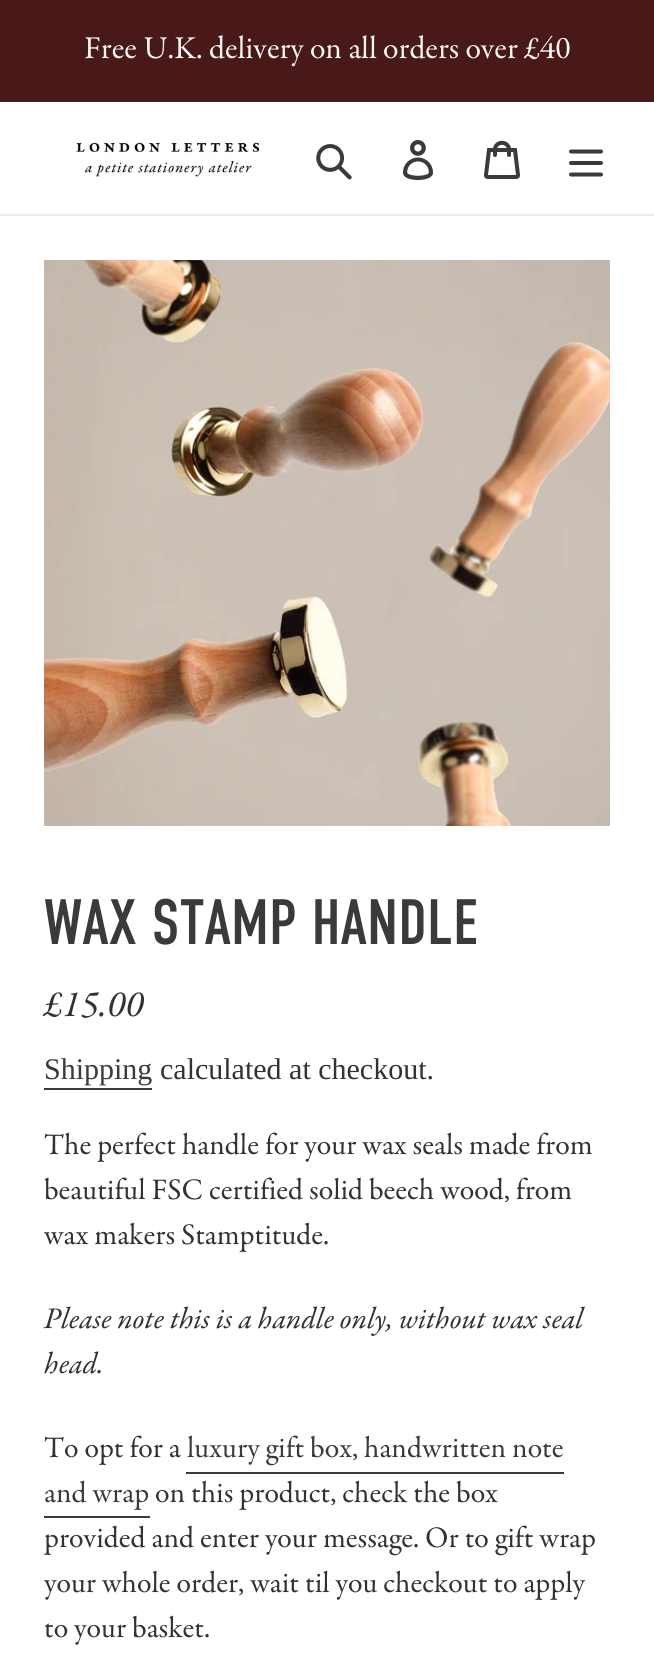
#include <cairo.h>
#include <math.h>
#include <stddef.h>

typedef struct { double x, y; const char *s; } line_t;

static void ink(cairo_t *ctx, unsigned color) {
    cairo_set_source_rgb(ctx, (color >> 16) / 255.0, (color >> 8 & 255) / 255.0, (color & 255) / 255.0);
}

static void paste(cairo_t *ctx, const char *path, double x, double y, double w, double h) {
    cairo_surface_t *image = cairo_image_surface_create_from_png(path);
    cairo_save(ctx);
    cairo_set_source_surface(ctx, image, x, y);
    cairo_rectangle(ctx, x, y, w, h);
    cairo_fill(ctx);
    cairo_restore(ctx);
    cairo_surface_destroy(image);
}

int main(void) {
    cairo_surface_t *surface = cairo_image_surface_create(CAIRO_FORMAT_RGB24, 654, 1665);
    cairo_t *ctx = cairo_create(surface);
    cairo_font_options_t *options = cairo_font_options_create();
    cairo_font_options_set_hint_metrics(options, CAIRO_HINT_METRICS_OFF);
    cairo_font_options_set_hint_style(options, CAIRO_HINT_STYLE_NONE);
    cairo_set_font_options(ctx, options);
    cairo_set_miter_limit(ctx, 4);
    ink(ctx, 0xFFFFFF);
    cairo_paint(ctx);
    ink(ctx, 0x491919);
    cairo_rectangle(ctx, 0, 0, 654, 102);
    cairo_fill(ctx);
    cairo_select_font_face(ctx, "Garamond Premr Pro", CAIRO_FONT_SLANT_NORMAL, CAIRO_FONT_WEIGHT_NORMAL);
    cairo_set_font_size(ctx, 32);
    ink(ctx, 0xF6F6F6);
    cairo_move_to(ctx, 84, 58);
    cairo_show_text(ctx, "Free U.K. delivery on all orders over £40");
    ink(ctx, 0xEBEBEB);
    cairo_rectangle(ctx, 0, 214, 654, 2);
    cairo_fill(ctx);
    paste(ctx, "media/1.png", 76, 142, 184, 35);
    paste(ctx, "media/2.png", 316, 144, 36, 36);
    paste(ctx, "media/3.png", 403, 140, 31, 40);
    paste(ctx, "media/4.png", 484, 140, 36, 39);
    paste(ctx, "media/5.png", 569, 149, 34, 28);
    paste(ctx, "media/6.png", 44, 260, 566, 566);
    cairo_select_font_face(ctx, "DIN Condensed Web", CAIRO_FONT_SLANT_NORMAL, CAIRO_FONT_WEIGHT_NORMAL);
    cairo_set_font_size(ctx, 64);
    ink(ctx, 0x3A3A3A);
    cairo_move_to(ctx, 44, 944);
    cairo_show_text(ctx, "WAX STAMP HANDLE");
    cairo_select_font_face(ctx, "Garamond Premr Pro", CAIRO_FONT_SLANT_ITALIC, CAIRO_FONT_WEIGHT_NORMAL);
    cairo_set_font_size(ctx, 37.5);
    ink(ctx, 0x333232);
    cairo_move_to(ctx, 44, 1016);
    cairo_show_text(ctx, "£15.00");
    cairo_select_font_face(ctx, "Liberation Serif", CAIRO_FONT_SLANT_NORMAL, CAIRO_FONT_WEIGHT_NORMAL);
    cairo_set_font_size(ctx, 30);
    ink(ctx, 0x3A3A3A);
    cairo_move_to(ctx, 44, 1079);
    cairo_show_text(ctx, "Shipping");
    cairo_rectangle(ctx, 44, 1088, 108, 2);
    cairo_fill(ctx);
    ink(ctx, 0x333232);
    cairo_move_to(ctx, 160, 1079);
    cairo_show_text(ctx, "calculated at checkout.");
    cairo_select_font_face(ctx, "Garamond Premr Pro", CAIRO_FONT_SLANT_NORMAL, CAIRO_FONT_WEIGHT_NORMAL);
    {
        static const line_t items[] = {
            {44, 1154, "The perfect handle for your wax seals made from"},
            {44, 1199, "beautiful FSC certified solid beech wood, from"},
            {44, 1244, "wax makers Stamptitude."},
        };
        for (size_t i = 0; i < sizeof items / sizeof *items; i++) {
            cairo_move_to(ctx, items[i].x, items[i].y);
            cairo_show_text(ctx, items[i].s);
        }
    }
    cairo_select_font_face(ctx, "Garamond Premr Pro", CAIRO_FONT_SLANT_ITALIC, CAIRO_FONT_WEIGHT_NORMAL);
    cairo_move_to(ctx, 44, 1328);
    cairo_show_text(ctx, "Please note this is a handle only, without wax seal");
    cairo_move_to(ctx, 44, 1373);
    cairo_show_text(ctx, "head.");
    cairo_select_font_face(ctx, "Garamond Premr Pro", CAIRO_FONT_SLANT_NORMAL, CAIRO_FONT_WEIGHT_NORMAL);
    cairo_move_to(ctx, 44, 1457);
    cairo_show_text(ctx, "To opt for a");
    ink(ctx, 0x3A3A3A);
    cairo_move_to(ctx, 187, 1457);
    cairo_show_text(ctx, "luxury gift box, handwritten note");
    cairo_rectangle(ctx, 186, 1472, 378, 2);
    cairo_fill(ctx);
    cairo_move_to(ctx, 44, 1502);
    cairo_show_text(ctx, "and wrap");
    cairo_rectangle(ctx, 44, 1516, 106, 2);
    cairo_fill(ctx);
    ink(ctx, 0x333232);
    {
        static const line_t items[] = {
            {155, 1502, "on this product, check the box"},
            {44, 1547, "provided and enter your message. Or to gift wrap"},
            {44, 1592, "your whole order, wait til you checkout to apply"},
            {44, 1637, "to your basket."},
        };
        for (size_t i = 0; i < sizeof items / sizeof *items; i++) {
            cairo_move_to(ctx, items[i].x, items[i].y);
            cairo_show_text(ctx, items[i].s);
        }
    }
    cairo_surface_write_to_png(surface, "image.png");
    cairo_font_options_destroy(options);
    cairo_destroy(ctx);
    cairo_surface_destroy(surface);
    return 0;
}
